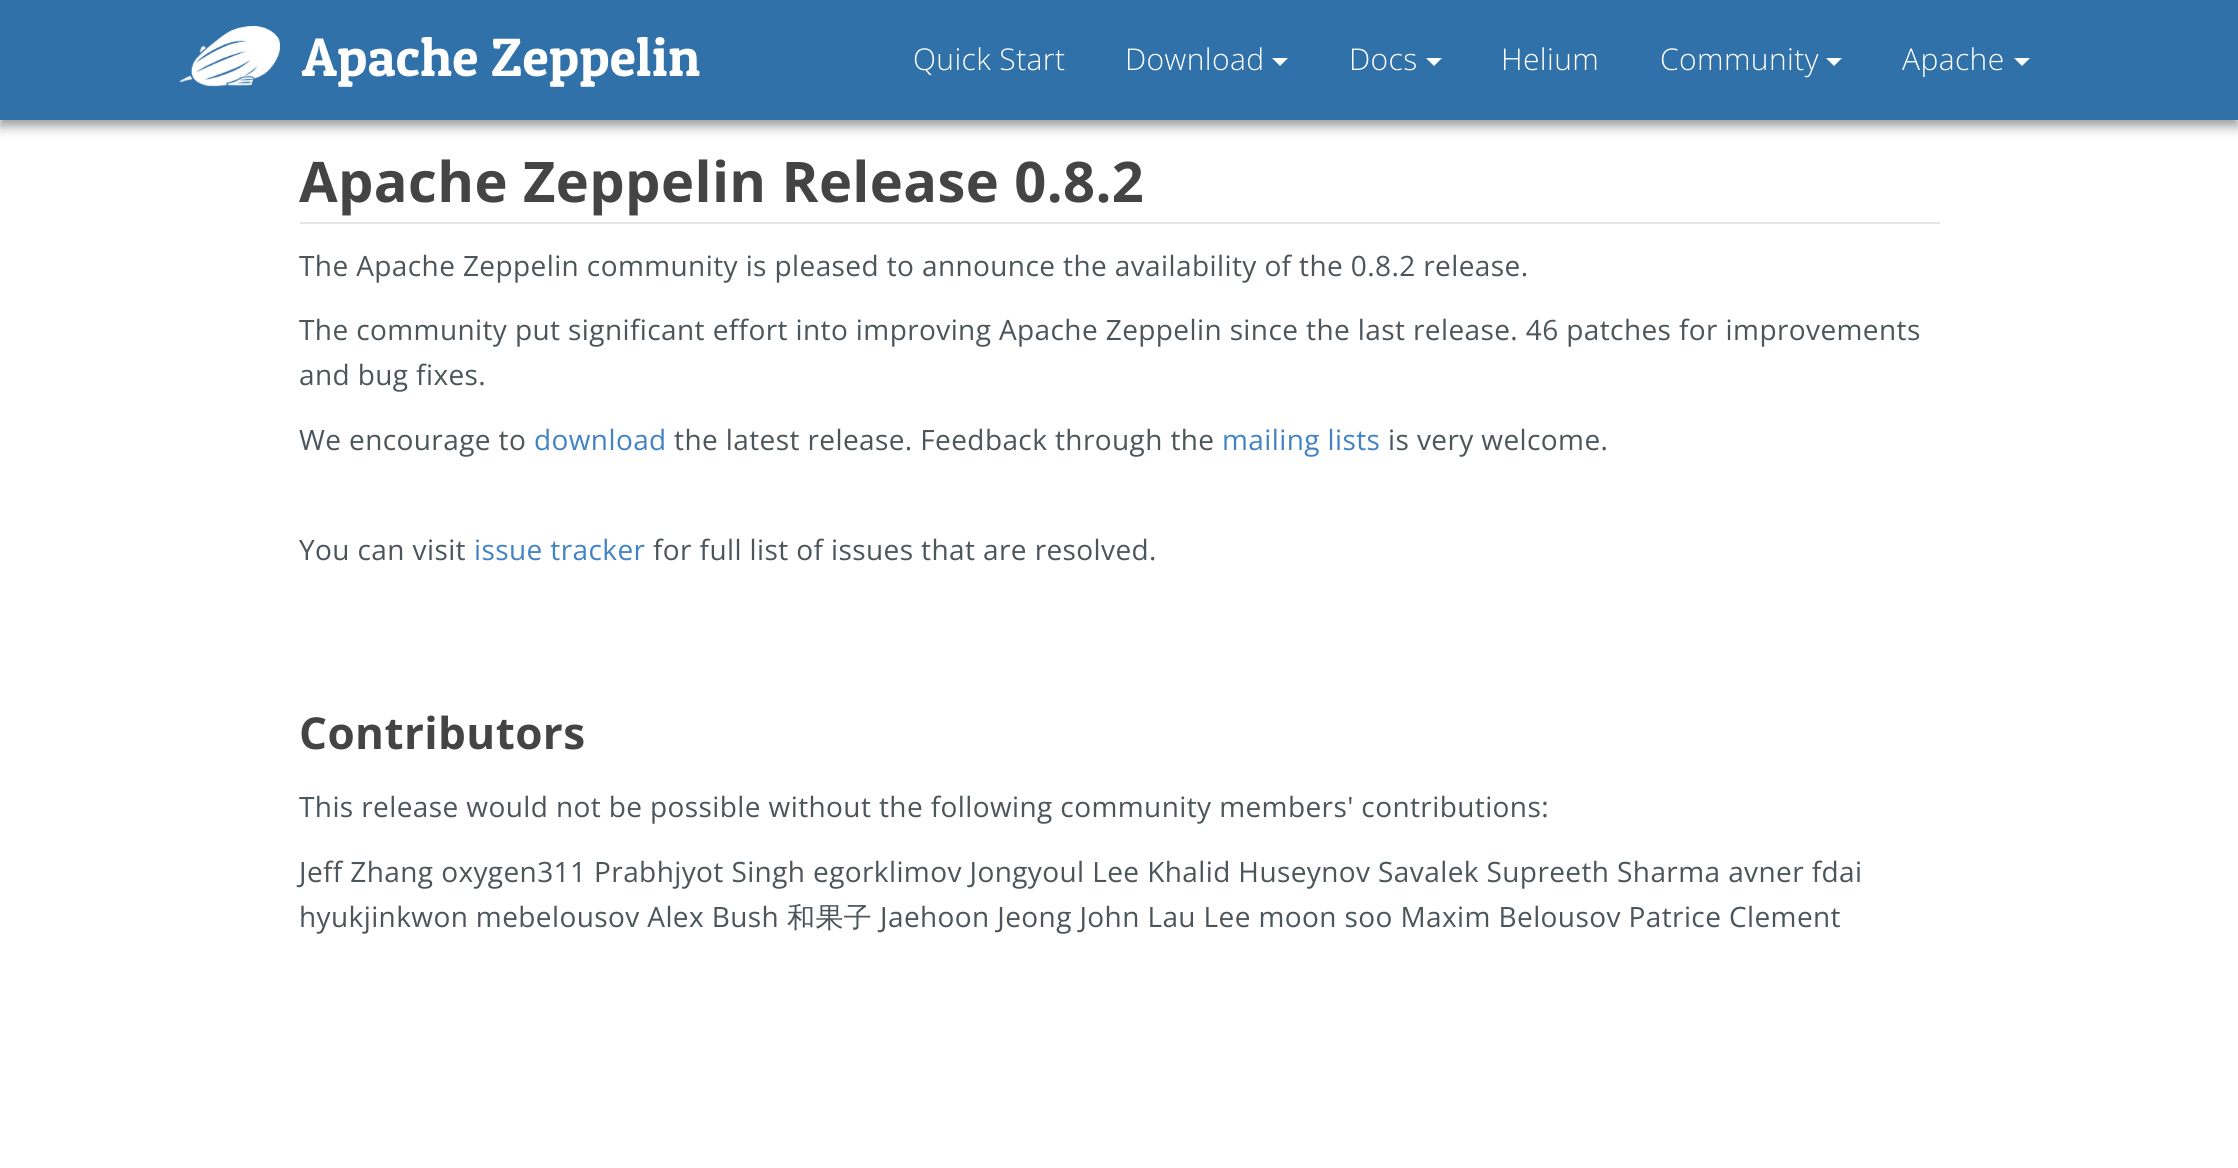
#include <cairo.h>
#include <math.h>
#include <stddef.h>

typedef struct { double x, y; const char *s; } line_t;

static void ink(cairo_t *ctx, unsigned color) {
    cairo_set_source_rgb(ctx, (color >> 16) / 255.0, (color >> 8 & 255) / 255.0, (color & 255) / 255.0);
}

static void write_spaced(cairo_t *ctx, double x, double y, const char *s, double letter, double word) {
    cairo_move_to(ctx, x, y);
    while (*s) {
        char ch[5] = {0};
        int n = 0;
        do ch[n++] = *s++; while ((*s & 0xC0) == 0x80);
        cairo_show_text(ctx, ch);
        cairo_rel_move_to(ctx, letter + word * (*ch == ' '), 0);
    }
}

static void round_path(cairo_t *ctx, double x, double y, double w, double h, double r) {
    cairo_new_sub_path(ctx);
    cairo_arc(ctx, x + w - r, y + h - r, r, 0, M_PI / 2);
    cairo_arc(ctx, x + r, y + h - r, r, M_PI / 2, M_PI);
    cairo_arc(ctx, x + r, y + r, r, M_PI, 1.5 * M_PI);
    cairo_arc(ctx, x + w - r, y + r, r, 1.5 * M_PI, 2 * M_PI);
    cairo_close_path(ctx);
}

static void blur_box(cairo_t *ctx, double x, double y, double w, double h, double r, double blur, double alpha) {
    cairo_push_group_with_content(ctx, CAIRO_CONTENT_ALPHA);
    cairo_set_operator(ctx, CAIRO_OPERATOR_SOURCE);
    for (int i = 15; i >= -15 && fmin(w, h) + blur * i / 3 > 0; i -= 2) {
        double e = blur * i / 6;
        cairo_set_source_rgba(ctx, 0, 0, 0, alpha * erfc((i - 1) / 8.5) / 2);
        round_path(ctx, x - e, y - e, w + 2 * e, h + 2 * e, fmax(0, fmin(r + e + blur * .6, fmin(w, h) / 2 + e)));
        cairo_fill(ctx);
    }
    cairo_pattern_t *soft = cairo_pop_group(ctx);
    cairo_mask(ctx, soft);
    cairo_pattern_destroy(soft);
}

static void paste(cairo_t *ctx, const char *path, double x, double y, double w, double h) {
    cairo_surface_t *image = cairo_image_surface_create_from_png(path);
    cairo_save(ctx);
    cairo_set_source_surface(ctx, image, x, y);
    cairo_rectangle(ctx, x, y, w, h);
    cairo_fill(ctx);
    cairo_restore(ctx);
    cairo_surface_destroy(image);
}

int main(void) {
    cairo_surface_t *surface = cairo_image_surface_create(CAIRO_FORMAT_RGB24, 2238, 1168);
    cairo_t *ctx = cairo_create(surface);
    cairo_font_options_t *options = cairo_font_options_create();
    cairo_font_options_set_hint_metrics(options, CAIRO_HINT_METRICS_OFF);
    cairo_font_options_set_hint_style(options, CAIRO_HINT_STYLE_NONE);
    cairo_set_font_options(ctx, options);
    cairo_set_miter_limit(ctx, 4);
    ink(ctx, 0xFFFFFF);
    cairo_paint(ctx);
    ink(ctx, 0x000000);
    blur_box(ctx, 0, 6, 2238, 120, 0, 6, 0.4);
    ink(ctx, 0x3071A9);
    cairo_rectangle(ctx, 0, 0, 2238, 120);
    cairo_fill(ctx);
    paste(ctx, "media/1.png", 179, 26, 101, 61);
    cairo_select_font_face(ctx, "Patua One", CAIRO_FONT_SLANT_NORMAL, CAIRO_FONT_WEIGHT_NORMAL);
    cairo_set_font_size(ctx, 54);
    ink(ctx, 0xFFFFFF);
    write_spaced(ctx, 302, 76, "Apache Zeppelin", 0.4, 0);
    cairo_select_font_face(ctx, "Open Sans Light", CAIRO_FONT_SLANT_NORMAL, CAIRO_FONT_WEIGHT_NORMAL);
    cairo_set_font_size(ctx, 30);
    write_spaced(ctx, 913, 70, "Quick Start", 0.4, 0);
    write_spaced(ctx, 1125, 70, "Download", 0.4, 0);
    cairo_new_path(ctx);
    cairo_move_to(ctx, 1272, 58);
    cairo_line_to(ctx, 1288, 58);
    cairo_line_to(ctx, 1280, 66);
    cairo_close_path(ctx);
    cairo_fill(ctx);
    write_spaced(ctx, 1349, 70, "Docs", 0.4, 0);
    cairo_new_path(ctx);
    cairo_move_to(ctx, 1426, 58);
    cairo_line_to(ctx, 1442, 58);
    cairo_line_to(ctx, 1434, 66);
    cairo_close_path(ctx);
    cairo_fill(ctx);
    write_spaced(ctx, 1501, 70, "Helium", 0.4, 0);
    write_spaced(ctx, 1660, 70, "Community", 0.4, 0);
    cairo_new_path(ctx);
    cairo_move_to(ctx, 1826, 58);
    cairo_line_to(ctx, 1842, 58);
    cairo_line_to(ctx, 1834, 66);
    cairo_close_path(ctx);
    cairo_fill(ctx);
    write_spaced(ctx, 1902, 70, "Apache", 0.4, 0);
    cairo_new_path(ctx);
    cairo_move_to(ctx, 2014, 58);
    cairo_line_to(ctx, 2030, 58);
    cairo_line_to(ctx, 2022, 66);
    cairo_close_path(ctx);
    cairo_fill(ctx);
    ink(ctx, 0xE5E5E5);
    cairo_rectangle(ctx, 300, 222, 1640, 2);
    cairo_fill(ctx);
    cairo_select_font_face(ctx, "Open Sans", CAIRO_FONT_SLANT_NORMAL, CAIRO_FONT_WEIGHT_BOLD);
    cairo_set_font_size(ctx, 56);
    ink(ctx, 0x444444);
    write_spaced(ctx, 299, 202, "Apache Zeppelin Release 0.8.2", 0.4, 0);
    cairo_select_font_face(ctx, "Open Sans", CAIRO_FONT_SLANT_NORMAL, CAIRO_FONT_WEIGHT_NORMAL);
    cairo_set_font_size(ctx, 28);
    ink(ctx, 0x4C555A);
    {
        static const line_t items[] = {
            {299, 276, "The Apache Zeppelin community is pleased to announce the availability of the 0.8.2 release."},
            {299, 340, "The community put significant effort into improving Apache Zeppelin since the last release. 46 patches for improvements"},
            {299, 385, "and bug fixes."},
            {299, 450, "We encourage to"},
        };
        for (size_t i = 0; i < sizeof items / sizeof *items; i++) {
            write_spaced(ctx, items[i].x, items[i].y, items[i].s, 0.4, 0);
        }
    }
    ink(ctx, 0x4183C4);
    write_spaced(ctx, 534, 450, "download", 0.4, 0);
    ink(ctx, 0x4C555A);
    write_spaced(ctx, 674, 450, "the latest release. Feedback through the", 0.4, 0);
    ink(ctx, 0x4183C4);
    write_spaced(ctx, 1222, 450, "mailing lists", 0.4, 0);
    ink(ctx, 0x4C555A);
    write_spaced(ctx, 1388, 450, "is very welcome.", 0.4, 0);
    write_spaced(ctx, 299, 560, "You can visit", 0.4, 0);
    ink(ctx, 0x4183C4);
    write_spaced(ctx, 474, 560, "issue tracker", 0.4, 0);
    ink(ctx, 0x4C555A);
    write_spaced(ctx, 653, 560, "for full list of issues that are resolved.", 0.4, 0);
    cairo_select_font_face(ctx, "Open Sans", CAIRO_FONT_SLANT_NORMAL, CAIRO_FONT_WEIGHT_BOLD);
    cairo_set_font_size(ctx, 44);
    ink(ctx, 0x444444);
    write_spaced(ctx, 299, 749, "Contributors", 0.4, 0);
    cairo_select_font_face(ctx, "Open Sans", CAIRO_FONT_SLANT_NORMAL, CAIRO_FONT_WEIGHT_NORMAL);
    cairo_set_font_size(ctx, 28);
    ink(ctx, 0x4C555A);
    {
        static const line_t items[] = {
            {299, 817, "This release would not be possible without the following community members' contributions:"},
            {299, 882, "Jeff Zhang oxygen311 Prabhjyot Singh egorklimov Jongyoul Lee Khalid Huseynov Savalek Supreeth Sharma avner fdai"},
            {299, 927, "hyukjinkwon mebelousov Alex Bush"},
        };
        for (size_t i = 0; i < sizeof items / sizeof *items; i++) {
            write_spaced(ctx, items[i].x, items[i].y, items[i].s, 0.4, 0);
        }
    }
    cairo_select_font_face(ctx, "WenQuanYi Zen Hei Medium", CAIRO_FONT_SLANT_NORMAL, CAIRO_FONT_WEIGHT_NORMAL);
    write_spaced(ctx, 787, 927, "和果子", 0.4, 0);
    cairo_select_font_face(ctx, "Open Sans", CAIRO_FONT_SLANT_NORMAL, CAIRO_FONT_WEIGHT_NORMAL);
    write_spaced(ctx, 880, 927, "Jaehoon Jeong John Lau Lee moon soo Maxim Belousov Patrice Clement", 0.4, 0);
    cairo_surface_write_to_png(surface, "image.png");
    cairo_font_options_destroy(options);
    cairo_destroy(ctx);
    cairo_surface_destroy(surface);
    return 0;
}
